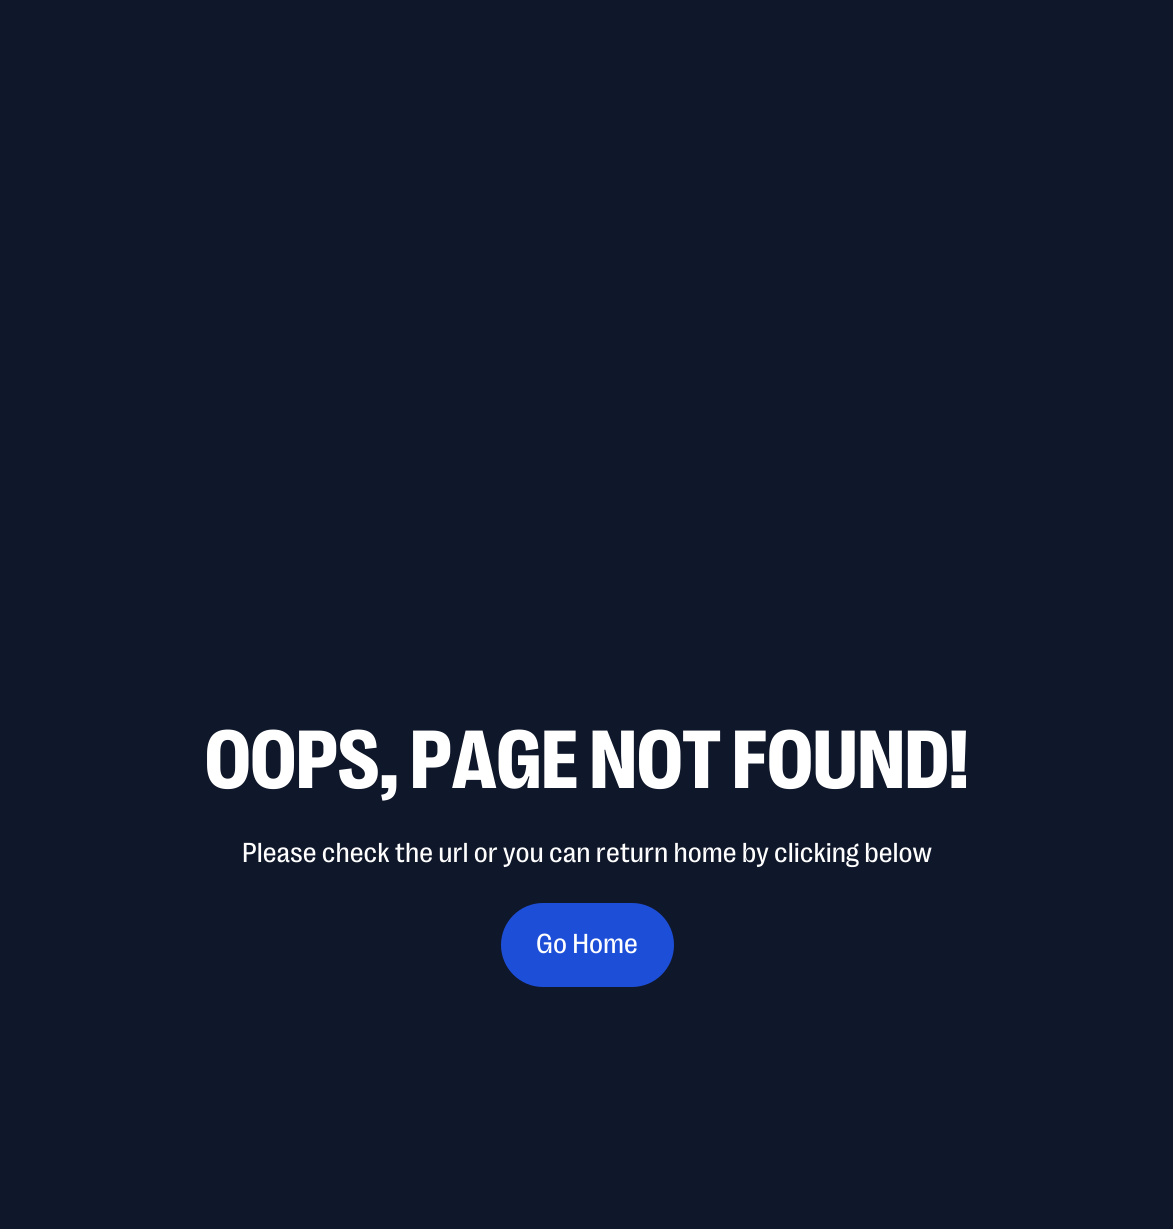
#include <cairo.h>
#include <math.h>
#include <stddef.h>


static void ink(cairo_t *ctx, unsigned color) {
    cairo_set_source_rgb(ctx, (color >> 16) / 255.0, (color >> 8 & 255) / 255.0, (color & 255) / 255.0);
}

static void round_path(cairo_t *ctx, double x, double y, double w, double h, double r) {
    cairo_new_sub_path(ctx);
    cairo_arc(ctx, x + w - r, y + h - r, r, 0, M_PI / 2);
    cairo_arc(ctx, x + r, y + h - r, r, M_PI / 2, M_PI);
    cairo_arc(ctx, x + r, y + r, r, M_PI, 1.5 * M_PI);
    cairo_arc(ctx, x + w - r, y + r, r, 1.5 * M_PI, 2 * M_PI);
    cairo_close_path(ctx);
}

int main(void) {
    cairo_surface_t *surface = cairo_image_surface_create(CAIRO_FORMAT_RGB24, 1173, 1229);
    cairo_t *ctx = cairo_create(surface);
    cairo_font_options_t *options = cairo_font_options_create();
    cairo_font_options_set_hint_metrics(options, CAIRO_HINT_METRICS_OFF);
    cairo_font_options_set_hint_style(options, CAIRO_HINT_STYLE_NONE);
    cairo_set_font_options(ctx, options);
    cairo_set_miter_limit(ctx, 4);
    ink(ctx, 0x0F172A);
    cairo_paint(ctx);
    cairo_select_font_face(ctx, "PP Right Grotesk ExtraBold", CAIRO_FONT_SLANT_NORMAL, CAIRO_FONT_WEIGHT_NORMAL);
    cairo_set_font_size(ctx, 84);
    ink(ctx, 0xFFFFFF);
    cairo_move_to(ctx, 205, 788);
    cairo_show_text(ctx, "OOPS, PAGE NOT FOUND!");
    cairo_select_font_face(ctx, "PP Right Grotesk", CAIRO_FONT_SLANT_NORMAL, CAIRO_FONT_WEIGHT_NORMAL);
    cairo_set_font_size(ctx, 28);
    cairo_move_to(ctx, 242, 862);
    cairo_show_text(ctx, "Please check the url or you can return home by clicking below");
    ink(ctx, 0x1D4ED8);
    round_path(ctx, 501, 903, 173, 84, 42);
    cairo_fill(ctx);
    ink(ctx, 0xFFFFFF);
    cairo_move_to(ctx, 536, 953);
    cairo_show_text(ctx, "Go Home");
    cairo_surface_write_to_png(surface, "image.png");
    cairo_font_options_destroy(options);
    cairo_destroy(ctx);
    cairo_surface_destroy(surface);
    return 0;
}
